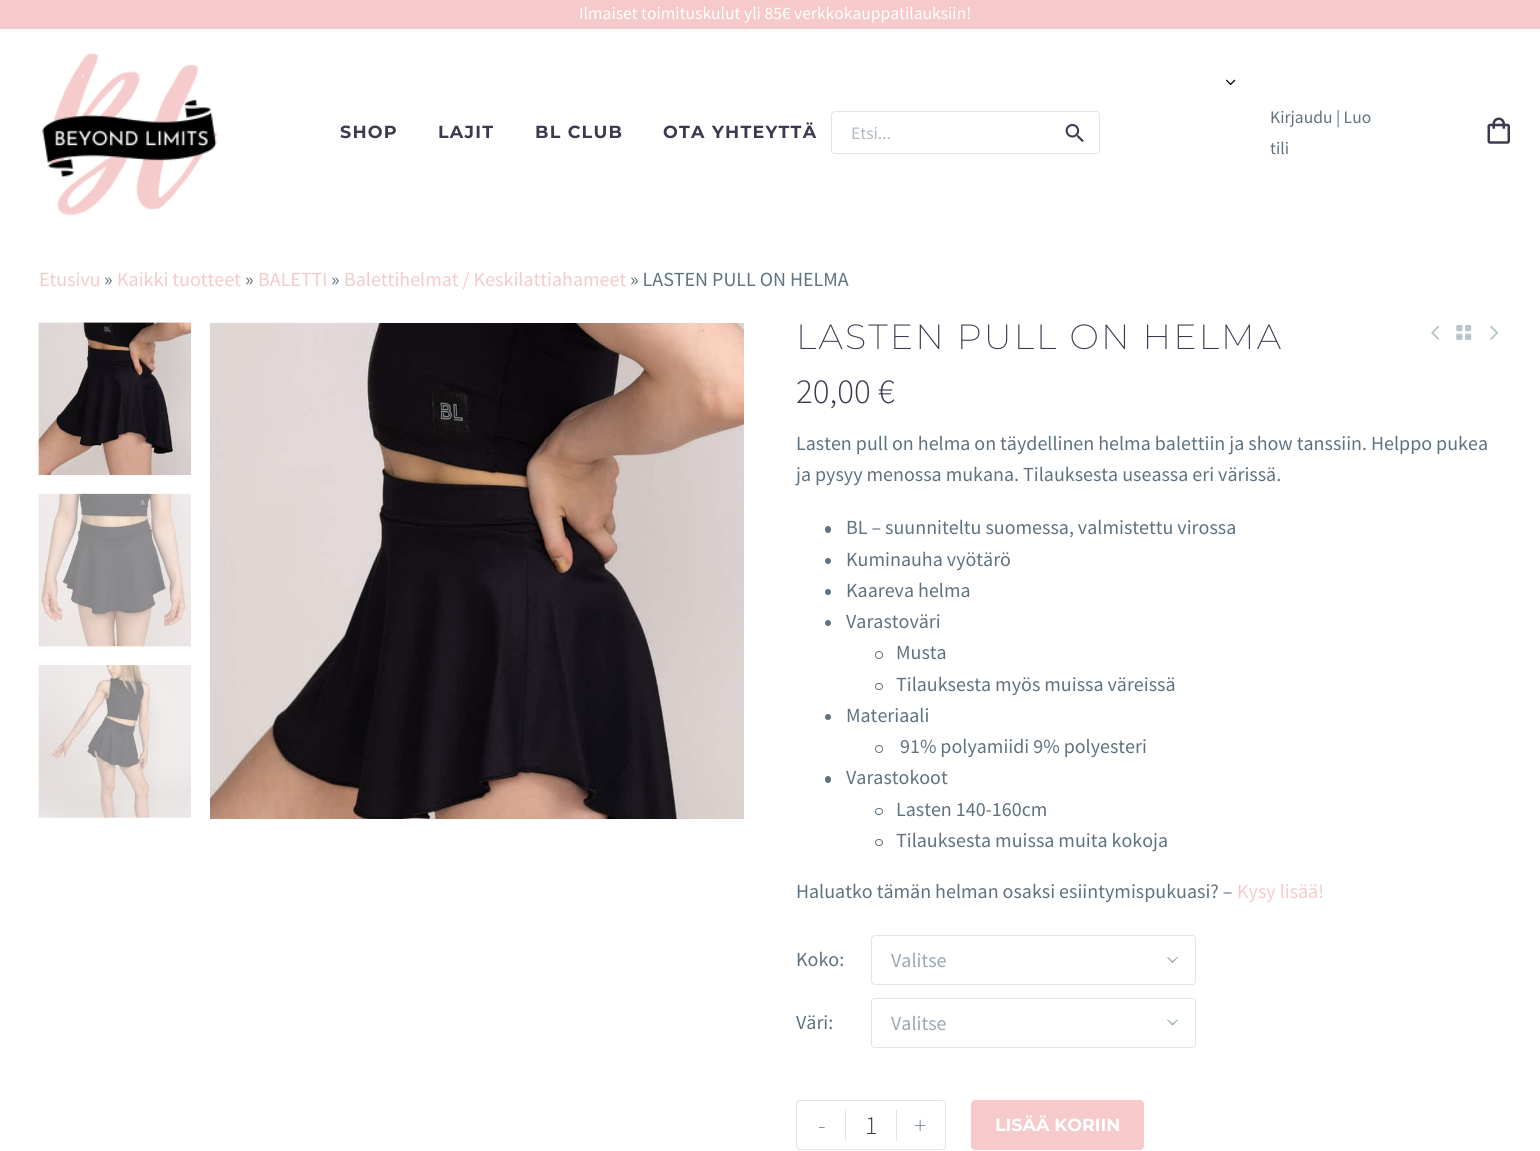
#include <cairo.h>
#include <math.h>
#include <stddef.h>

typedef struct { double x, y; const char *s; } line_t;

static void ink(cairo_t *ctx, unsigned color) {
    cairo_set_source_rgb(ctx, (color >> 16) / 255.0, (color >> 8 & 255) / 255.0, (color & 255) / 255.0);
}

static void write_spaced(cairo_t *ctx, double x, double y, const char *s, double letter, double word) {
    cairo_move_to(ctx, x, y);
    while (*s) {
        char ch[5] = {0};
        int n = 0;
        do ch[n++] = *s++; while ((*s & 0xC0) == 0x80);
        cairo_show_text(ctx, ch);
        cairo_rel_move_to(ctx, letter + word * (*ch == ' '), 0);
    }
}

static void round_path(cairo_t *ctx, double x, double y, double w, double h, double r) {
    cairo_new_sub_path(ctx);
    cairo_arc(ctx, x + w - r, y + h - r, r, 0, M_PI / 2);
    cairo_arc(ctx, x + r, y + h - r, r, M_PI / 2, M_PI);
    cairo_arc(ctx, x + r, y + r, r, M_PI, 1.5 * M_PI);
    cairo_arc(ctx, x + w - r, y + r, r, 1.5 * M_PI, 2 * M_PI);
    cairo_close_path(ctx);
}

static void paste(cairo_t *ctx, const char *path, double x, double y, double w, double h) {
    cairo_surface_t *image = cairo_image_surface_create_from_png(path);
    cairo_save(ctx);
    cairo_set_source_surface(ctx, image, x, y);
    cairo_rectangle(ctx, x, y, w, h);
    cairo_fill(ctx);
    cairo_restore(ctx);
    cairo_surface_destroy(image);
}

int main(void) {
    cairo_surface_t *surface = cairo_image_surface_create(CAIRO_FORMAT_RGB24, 1540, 1151);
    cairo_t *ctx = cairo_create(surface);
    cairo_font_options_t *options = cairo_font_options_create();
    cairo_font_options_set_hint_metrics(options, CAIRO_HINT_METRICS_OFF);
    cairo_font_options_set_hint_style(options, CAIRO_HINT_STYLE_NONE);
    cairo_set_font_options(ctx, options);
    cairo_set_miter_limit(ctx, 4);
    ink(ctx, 0xFFFFFF);
    cairo_paint(ctx);
    ink(ctx, 0xF6CACA);
    cairo_rectangle(ctx, 0, 0, 1540, 29);
    cairo_fill(ctx);
    cairo_select_font_face(ctx, "Source Sans Pro", CAIRO_FONT_SLANT_NORMAL, CAIRO_FONT_WEIGHT_NORMAL);
    cairo_set_font_size(ctx, 17.5);
    ink(ctx, 0xFFFFFF);
    cairo_move_to(ctx, 579, 19);
    cairo_show_text(ctx, "Ilmaiset toimituskulut yli 85€ verkkokauppatilauksiin!");
    paste(ctx, "media/1.png", 42, 53, 176, 163);
    paste(ctx, "media/2.png", 1226, 79, 10, 6);
    cairo_select_font_face(ctx, "Montserrat", CAIRO_FONT_SLANT_NORMAL, CAIRO_FONT_WEIGHT_BOLD);
    ink(ctx, 0x3C3950);
    {
        static const line_t items[] = {
            {340, 138, "SHOP"},
            {438, 138, "LAJIT"},
            {535, 138, "BL CLUB"},
            {663, 138, "OTA YHTEYTTÄ"},
        };
        for (size_t i = 0; i < sizeof items / sizeof *items; i++) {
            write_spaced(ctx, items[i].x, items[i].y, items[i].s, 1.25, 0);
        }
    }
    round_path(ctx, 831.5, 111.5, 268, 42, 3.5);
    ink(ctx, 0xDFE5E8);
    cairo_set_line_width(ctx, 1);
    cairo_stroke(ctx);
    cairo_select_font_face(ctx, "Source Sans Pro", CAIRO_FONT_SLANT_NORMAL, CAIRO_FONT_WEIGHT_NORMAL);
    ink(ctx, 0xAFB9BF);
    cairo_move_to(ctx, 851, 139);
    cairo_show_text(ctx, "Etsi...");
    paste(ctx, "media/3.png", 1065, 123, 19, 20);
    ink(ctx, 0x5F727F);
    cairo_move_to(ctx, 1270, 123);
    cairo_show_text(ctx, "Kirjaudu | Luo");
    cairo_move_to(ctx, 1270, 154);
    cairo_show_text(ctx, "tili");
    paste(ctx, "media/4.png", 1487, 117, 23, 27);
    cairo_set_font_size(ctx, 20);
    ink(ctx, 0xF6CACA);
    cairo_move_to(ctx, 39, 286);
    cairo_show_text(ctx, "Etusivu");
    ink(ctx, 0x5F727F);
    cairo_move_to(ctx, 104, 286);
    cairo_show_text(ctx, "»");
    ink(ctx, 0xF6CACA);
    cairo_move_to(ctx, 117, 286);
    cairo_show_text(ctx, "Kaikki tuotteet");
    ink(ctx, 0x5F727F);
    cairo_move_to(ctx, 245, 286);
    cairo_show_text(ctx, "»");
    ink(ctx, 0xF6CACA);
    cairo_move_to(ctx, 258, 286);
    cairo_show_text(ctx, "BALETTI");
    ink(ctx, 0x5F727F);
    cairo_move_to(ctx, 331, 286);
    cairo_show_text(ctx, "»");
    ink(ctx, 0xF6CACA);
    cairo_move_to(ctx, 344, 286);
    cairo_show_text(ctx, "Balettihelmat / Keskilattiahameet");
    ink(ctx, 0x5F727F);
    cairo_move_to(ctx, 630, 286);
    cairo_show_text(ctx, "» LASTEN PULL ON HELMA");
    paste(ctx, "media/5.png", 38, 322, 153, 153);
    paste(ctx, "media/6.png", 38, 493, 153, 154);
    paste(ctx, "media/7.png", 38, 665, 153, 153);
    paste(ctx, "media/8.png", 210, 323, 534, 496);
    cairo_select_font_face(ctx, "Montserrat ExtraLight", CAIRO_FONT_SLANT_NORMAL, CAIRO_FONT_WEIGHT_NORMAL);
    cairo_set_font_size(ctx, 35);
    ink(ctx, 0x3C3950);
    write_spaced(ctx, 796, 349, "LASTEN PULL ON HELMA", 2.1, 0);
    paste(ctx, "media/9.png", 1431, 325, 9, 15);
    paste(ctx, "media/10.png", 1456, 325, 16, 15);
    paste(ctx, "media/11.png", 1490, 325, 8, 15);
    cairo_select_font_face(ctx, "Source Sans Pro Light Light", CAIRO_FONT_SLANT_NORMAL, CAIRO_FONT_WEIGHT_NORMAL);
    cairo_move_to(ctx, 796, 403);
    cairo_show_text(ctx, "20,00 €");
    cairo_select_font_face(ctx, "Source Sans Pro", CAIRO_FONT_SLANT_NORMAL, CAIRO_FONT_WEIGHT_NORMAL);
    cairo_set_font_size(ctx, 20);
    ink(ctx, 0x5F727F);
    cairo_move_to(ctx, 796, 450);
    cairo_show_text(ctx, "Lasten pull on helma on täydellinen helma balettiin ja show tanssiin. Helppo pukea");
    cairo_move_to(ctx, 796, 481);
    cairo_show_text(ctx, "ja pysyy menossa mukana. Tilauksesta useassa eri värissä.");
    round_path(ctx, 825, 526, 6, 7, 3);
    cairo_fill(ctx);
    cairo_move_to(ctx, 846, 534);
    cairo_show_text(ctx, "BL – suunniteltu suomessa, valmistettu virossa");
    cairo_new_path(ctx);
    cairo_arc(ctx, 828, 561, 3, 0, 2 * M_PI);
    cairo_fill(ctx);
    cairo_move_to(ctx, 846, 566);
    cairo_show_text(ctx, "Kuminauha vyötärö");
    cairo_new_path(ctx);
    cairo_arc(ctx, 828, 592, 3, 0, 2 * M_PI);
    cairo_fill(ctx);
    cairo_move_to(ctx, 846, 597);
    cairo_show_text(ctx, "Kaareva helma");
    cairo_new_path(ctx);
    cairo_arc(ctx, 828, 623, 3, 0, 2 * M_PI);
    cairo_fill(ctx);
    cairo_move_to(ctx, 846, 628);
    cairo_show_text(ctx, "Varastoväri");
    cairo_new_path(ctx);
    cairo_arc(ctx, 879, 655, 3.5, 0, 2 * M_PI);
    cairo_stroke(ctx);
    cairo_move_to(ctx, 896, 659);
    cairo_show_text(ctx, "Musta");
    round_path(ctx, 875.5, 683.5, 7, 6, 3);
    cairo_stroke(ctx);
    cairo_move_to(ctx, 896, 691);
    cairo_show_text(ctx, "Tilauksesta myös muissa väreissä");
    cairo_new_path(ctx);
    cairo_arc(ctx, 828, 717, 3, 0, 2 * M_PI);
    cairo_fill(ctx);
    cairo_move_to(ctx, 846, 722);
    cairo_show_text(ctx, "Materiaali");
    cairo_new_path(ctx);
    cairo_arc(ctx, 879, 749, 3.5, 0, 2 * M_PI);
    cairo_stroke(ctx);
    cairo_move_to(ctx, 900, 753);
    cairo_show_text(ctx, "91% polyamiidi 9% polyesteri");
    round_path(ctx, 825, 776, 6, 7, 3);
    cairo_fill(ctx);
    cairo_move_to(ctx, 846, 784);
    cairo_show_text(ctx, "Varastokoot");
    round_path(ctx, 875.5, 808.5, 7, 6, 3);
    cairo_stroke(ctx);
    cairo_move_to(ctx, 896, 816);
    cairo_show_text(ctx, "Lasten 140-160cm");
    round_path(ctx, 875.5, 839.5, 7, 6, 3);
    cairo_stroke(ctx);
    cairo_move_to(ctx, 896, 847);
    cairo_show_text(ctx, "Tilauksesta muissa muita kokoja");
    cairo_move_to(ctx, 796, 898);
    cairo_show_text(ctx, "Haluatko tämän helman osaksi esiintymispukuasi? –");
    ink(ctx, 0xF6CACA);
    cairo_move_to(ctx, 1237, 898);
    cairo_show_text(ctx, "Kysy lisää!");
    ink(ctx, 0x5F727F);
    cairo_move_to(ctx, 796, 966);
    cairo_show_text(ctx, "Koko:");
    round_path(ctx, 871.5, 935.5, 324, 49, 3.5);
    ink(ctx, 0xDFE5E8);
    cairo_stroke(ctx);
    ink(ctx, 0x99A9B5);
    cairo_move_to(ctx, 891, 967);
    cairo_show_text(ctx, "Valitse");
    cairo_new_path(ctx);
    cairo_move_to(ctx, 1177, 957);
    cairo_line_to(ctx, 1178, 957.5);
    cairo_line_to(ctx, 1172.5, 963);
    cairo_line_to(ctx, 1171.5, 962);
    cairo_close_path(ctx);
    cairo_fill(ctx);
    cairo_new_path(ctx);
    cairo_move_to(ctx, 1168, 957);
    cairo_line_to(ctx, 1173.5, 962);
    cairo_line_to(ctx, 1172.5, 963);
    cairo_line_to(ctx, 1167, 957.5);
    cairo_close_path(ctx);
    cairo_fill(ctx);
    ink(ctx, 0x5F727F);
    cairo_move_to(ctx, 796, 1029);
    cairo_show_text(ctx, "Väri:");
    round_path(ctx, 871.5, 998.5, 324, 49, 3.5);
    ink(ctx, 0xDFE5E8);
    cairo_stroke(ctx);
    ink(ctx, 0x99A9B5);
    cairo_move_to(ctx, 891, 1030);
    cairo_show_text(ctx, "Valitse");
    cairo_new_path(ctx);
    cairo_move_to(ctx, 1177, 1019.5);
    cairo_line_to(ctx, 1178, 1020);
    cairo_line_to(ctx, 1172.5, 1025.5);
    cairo_line_to(ctx, 1171.5, 1024.5);
    cairo_close_path(ctx);
    cairo_fill(ctx);
    cairo_new_path(ctx);
    cairo_move_to(ctx, 1168, 1019.5);
    cairo_line_to(ctx, 1173.5, 1024.5);
    cairo_line_to(ctx, 1172.5, 1025.5);
    cairo_line_to(ctx, 1167, 1020);
    cairo_close_path(ctx);
    cairo_fill(ctx);
    round_path(ctx, 796.5, 1100.5, 149, 49, 3.5);
    ink(ctx, 0xDFE5E8);
    cairo_stroke(ctx);
    cairo_select_font_face(ctx, "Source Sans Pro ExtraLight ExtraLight", CAIRO_FONT_SLANT_NORMAL, CAIRO_FONT_WEIGHT_NORMAL);
    cairo_set_font_size(ctx, 26);
    ink(ctx, 0x5F727F);
    cairo_move_to(ctx, 818, 1134);
    cairo_show_text(ctx, "-");
    ink(ctx, 0xDFE5E8);
    cairo_rectangle(ctx, 845, 1110, 1, 31);
    cairo_fill(ctx);
    cairo_select_font_face(ctx, "Source Sans Pro Light Light", CAIRO_FONT_SLANT_NORMAL, CAIRO_FONT_WEIGHT_NORMAL);
    ink(ctx, 0x3C3950);
    cairo_move_to(ctx, 865, 1134);
    cairo_show_text(ctx, "1");
    ink(ctx, 0xDFE5E8);
    cairo_rectangle(ctx, 896, 1110, 1, 31);
    cairo_fill(ctx);
    cairo_select_font_face(ctx, "Source Sans Pro ExtraLight ExtraLight", CAIRO_FONT_SLANT_NORMAL, CAIRO_FONT_WEIGHT_NORMAL);
    ink(ctx, 0x5F727F);
    cairo_move_to(ctx, 914, 1134);
    cairo_show_text(ctx, "+");
    ink(ctx, 0xF6CACA);
    round_path(ctx, 972.5, 1101.5, 170, 47, 2.5);
    cairo_fill_preserve(ctx);
    cairo_set_line_width(ctx, 3);
    cairo_stroke(ctx);
    cairo_select_font_face(ctx, "Montserrat", CAIRO_FONT_SLANT_NORMAL, CAIRO_FONT_WEIGHT_BOLD);
    cairo_set_font_size(ctx, 17.5);
    ink(ctx, 0xFFFFFF);
    cairo_move_to(ctx, 995, 1131);
    cairo_show_text(ctx, "LISÄÄ KORIIN");
    cairo_surface_write_to_png(surface, "image.png");
    cairo_font_options_destroy(options);
    cairo_destroy(ctx);
    cairo_surface_destroy(surface);
    return 0;
}
